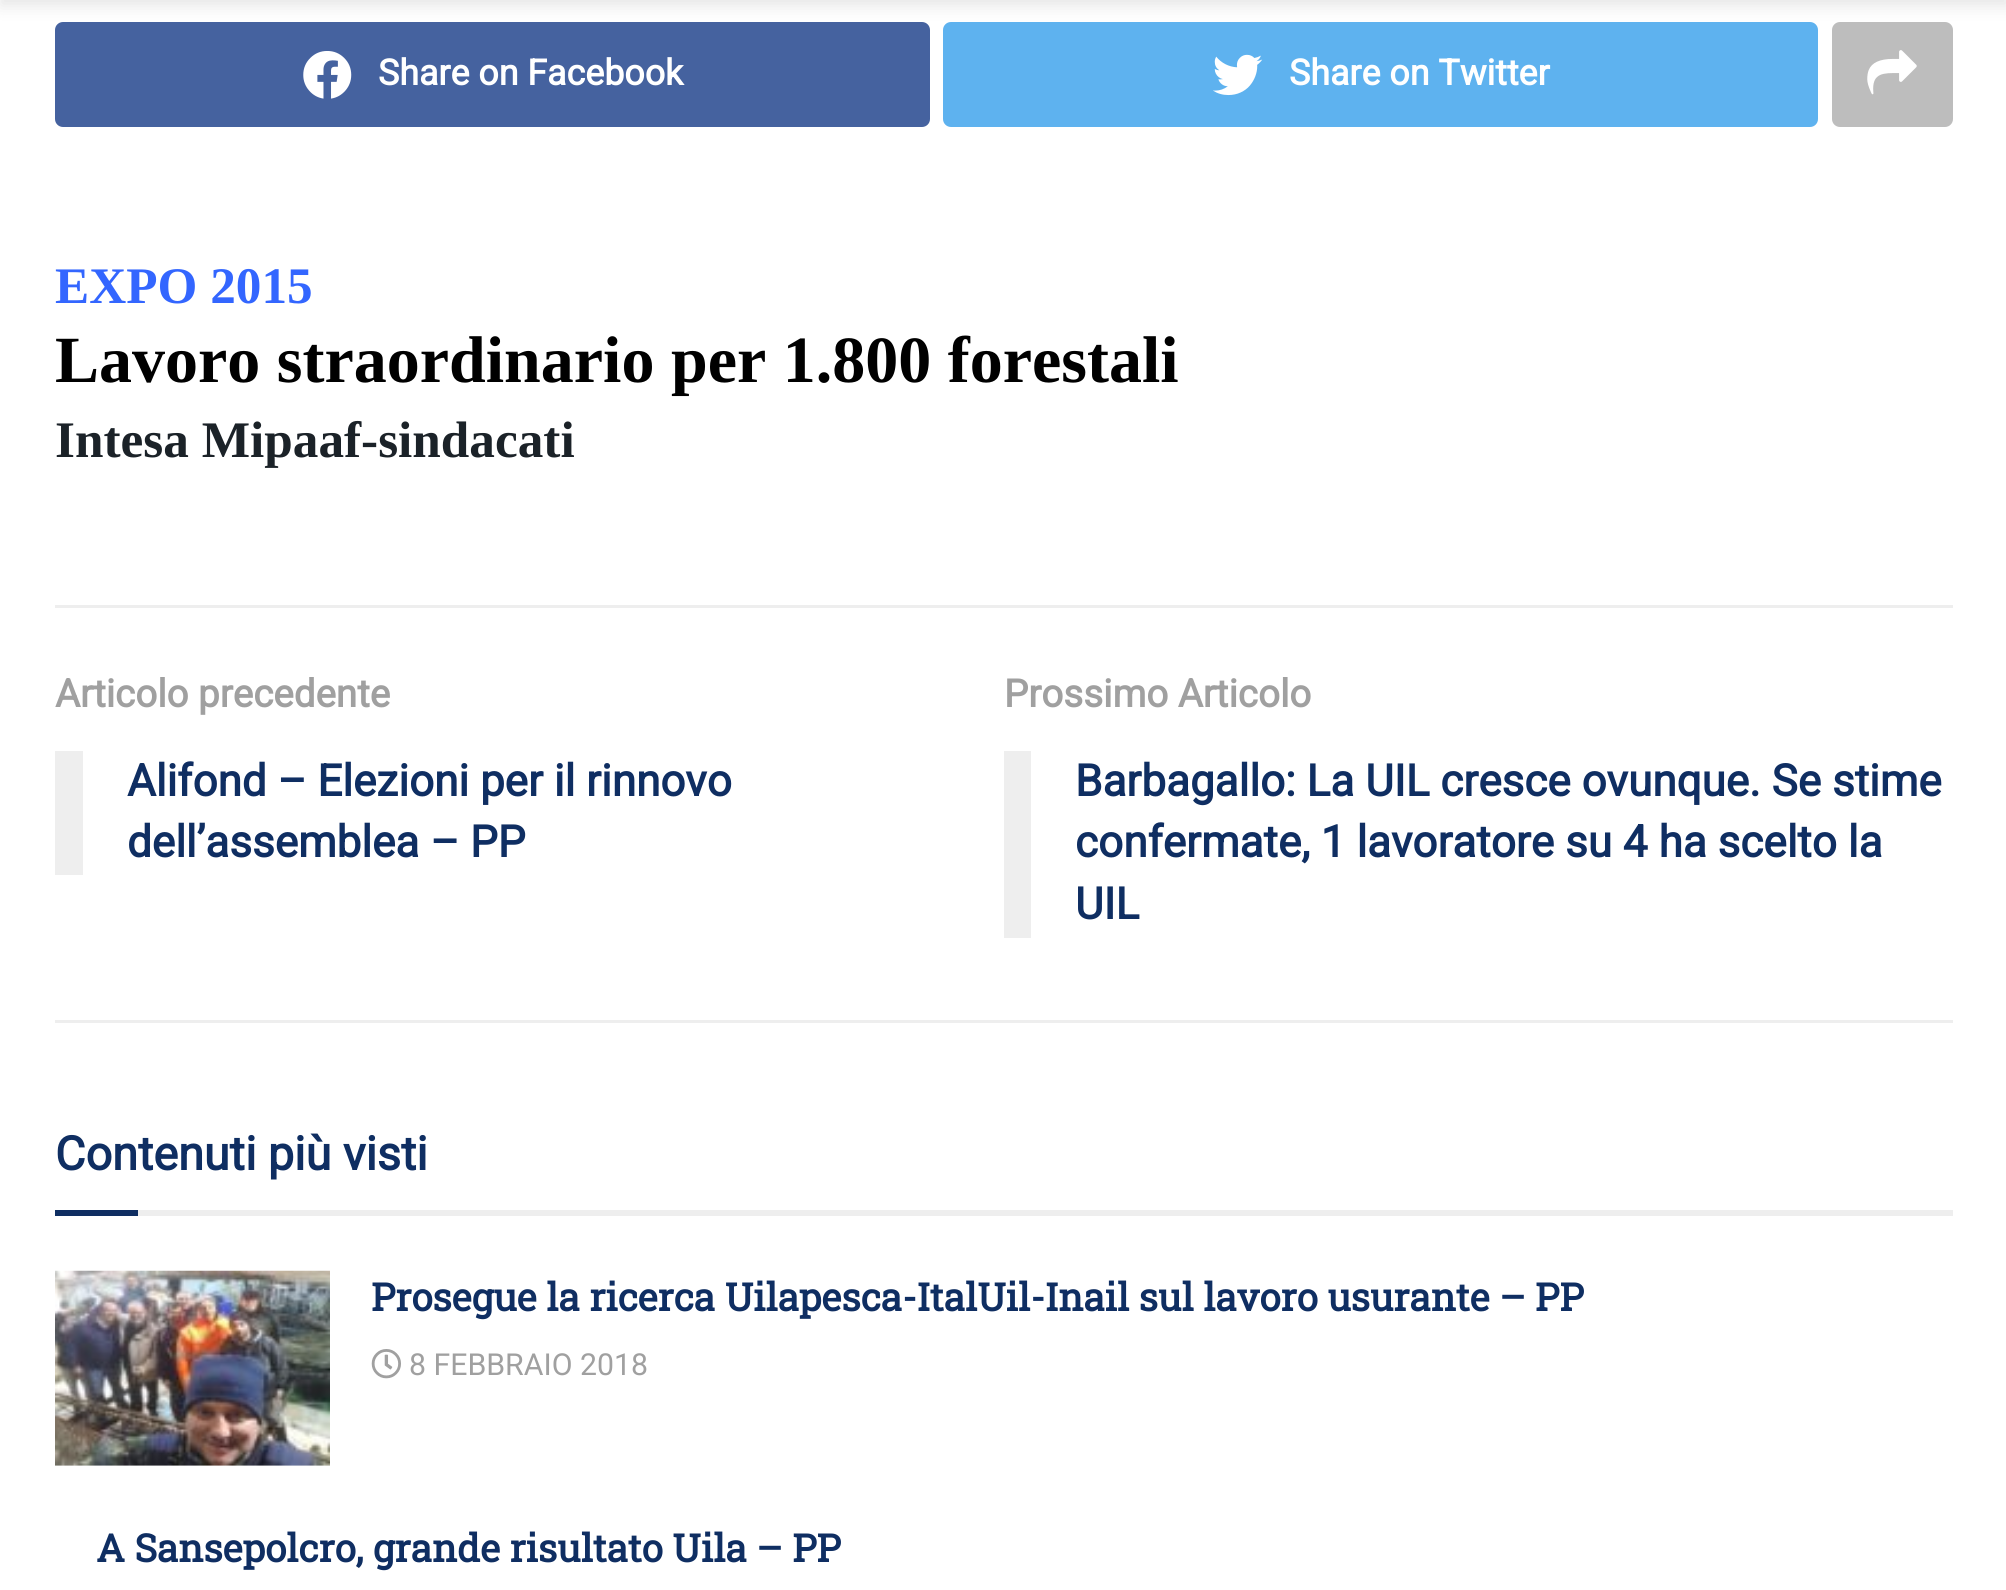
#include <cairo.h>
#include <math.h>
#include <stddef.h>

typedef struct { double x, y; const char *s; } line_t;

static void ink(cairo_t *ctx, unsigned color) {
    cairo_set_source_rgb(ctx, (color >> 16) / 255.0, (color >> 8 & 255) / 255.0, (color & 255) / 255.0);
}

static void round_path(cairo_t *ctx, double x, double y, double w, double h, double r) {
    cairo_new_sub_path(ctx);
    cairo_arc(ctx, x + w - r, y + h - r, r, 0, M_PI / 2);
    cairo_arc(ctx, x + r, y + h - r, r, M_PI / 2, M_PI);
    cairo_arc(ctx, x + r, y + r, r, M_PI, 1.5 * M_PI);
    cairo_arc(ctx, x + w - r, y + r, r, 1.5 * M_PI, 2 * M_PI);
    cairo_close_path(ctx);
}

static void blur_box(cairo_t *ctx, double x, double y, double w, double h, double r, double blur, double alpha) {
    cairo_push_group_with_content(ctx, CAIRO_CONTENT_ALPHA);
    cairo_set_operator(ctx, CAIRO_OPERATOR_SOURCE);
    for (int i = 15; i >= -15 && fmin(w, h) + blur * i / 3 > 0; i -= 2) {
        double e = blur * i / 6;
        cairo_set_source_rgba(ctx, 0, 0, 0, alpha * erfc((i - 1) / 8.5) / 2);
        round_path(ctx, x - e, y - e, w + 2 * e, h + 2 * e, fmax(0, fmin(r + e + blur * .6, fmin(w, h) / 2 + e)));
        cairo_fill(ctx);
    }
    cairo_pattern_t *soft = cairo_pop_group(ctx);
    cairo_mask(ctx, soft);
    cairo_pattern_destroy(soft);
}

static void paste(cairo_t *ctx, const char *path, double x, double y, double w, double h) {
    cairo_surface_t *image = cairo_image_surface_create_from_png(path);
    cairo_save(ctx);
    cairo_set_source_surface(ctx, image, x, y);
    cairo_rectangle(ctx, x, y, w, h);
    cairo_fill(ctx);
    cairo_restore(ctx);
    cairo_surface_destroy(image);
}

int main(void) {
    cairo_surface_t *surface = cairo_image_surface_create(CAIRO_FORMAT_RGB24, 2006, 1590);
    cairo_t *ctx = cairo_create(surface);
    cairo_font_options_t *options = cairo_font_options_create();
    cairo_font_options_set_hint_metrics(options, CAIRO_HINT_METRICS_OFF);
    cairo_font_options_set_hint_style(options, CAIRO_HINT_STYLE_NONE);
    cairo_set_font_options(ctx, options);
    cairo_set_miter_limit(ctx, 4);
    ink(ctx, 0xFFFFFF);
    cairo_paint(ctx);
    ink(ctx, 0x45629F);
    round_path(ctx, 55, 22, 875, 105, 8);
    cairo_fill(ctx);
    ink(ctx, 0x5EB2EF);
    round_path(ctx, 943, 22, 875, 105, 8);
    cairo_fill(ctx);
    ink(ctx, 0xBDBDBD);
    round_path(ctx, 1832, 22, 121, 105, 8);
    cairo_fill(ctx);
    ink(ctx, 0x000000);
    blur_box(ctx, 0, -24, 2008, 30, 0, 8, 0.1);
    paste(ctx, "media/1.png", 303, 51, 49, 48);
    cairo_select_font_face(ctx, "Roboto", CAIRO_FONT_SLANT_NORMAL, CAIRO_FONT_WEIGHT_BOLD);
    cairo_set_font_size(ctx, 35.75);
    ink(ctx, 0xFFFFFF);
    cairo_move_to(ctx, 378, 85);
    cairo_show_text(ctx, "Share on Facebook");
    paste(ctx, "media/2.png", 1213, 54, 50, 42);
    cairo_move_to(ctx, 1289, 85);
    cairo_show_text(ctx, "Share on Twitter");
    paste(ctx, "media/3.png", 1867, 50, 50, 45);
    cairo_select_font_face(ctx, "Liberation Serif", CAIRO_FONT_SLANT_NORMAL, CAIRO_FONT_WEIGHT_BOLD);
    cairo_set_font_size(ctx, 51.25);
    ink(ctx, 0x3366FF);
    cairo_move_to(ctx, 55, 303);
    cairo_show_text(ctx, "EXPO 2015");
    cairo_set_font_size(ctx, 66);
    ink(ctx, 0x000000);
    cairo_move_to(ctx, 55, 382);
    cairo_show_text(ctx, "Lavoro straordinario per 1.800 forestali");
    cairo_set_font_size(ctx, 51.25);
    ink(ctx, 0x1B2228);
    cairo_move_to(ctx, 55, 457);
    cairo_show_text(ctx, "Intesa Mipaaf-sindacati");
    ink(ctx, 0xEEEEEE);
    cairo_rectangle(ctx, 55, 605, 1898, 3);
    cairo_fill(ctx);
    cairo_rectangle(ctx, 55, 1020, 1898, 3);
    cairo_fill(ctx);
    cairo_select_font_face(ctx, "Roboto", CAIRO_FONT_SLANT_NORMAL, CAIRO_FONT_WEIGHT_BOLD);
    cairo_set_font_size(ctx, 38.5);
    ink(ctx, 0xA0A0A0);
    cairo_move_to(ctx, 55, 707);
    cairo_show_text(ctx, "Articolo precedente");
    ink(ctx, 0xEEEEEE);
    cairo_rectangle(ctx, 55, 751, 28, 124);
    cairo_fill(ctx);
    cairo_set_font_size(ctx, 44);
    ink(ctx, 0x0F2E62);
    cairo_move_to(ctx, 127, 796);
    cairo_show_text(ctx, "Alifond – Elezioni per il rinnovo");
    cairo_move_to(ctx, 127, 857);
    cairo_show_text(ctx, "dell’assemblea – PP");
    cairo_set_font_size(ctx, 38.5);
    ink(ctx, 0xA0A0A0);
    cairo_move_to(ctx, 1004, 707);
    cairo_show_text(ctx, "Prossimo Articolo");
    ink(ctx, 0xEEEEEE);
    cairo_rectangle(ctx, 1004, 751, 27, 187);
    cairo_fill(ctx);
    cairo_set_font_size(ctx, 44);
    ink(ctx, 0x0F2E62);
    {
        static const line_t items[] = {
            {1075, 796, "Barbagallo: La UIL cresce ovunque. Se stime"},
            {1075, 857, "confermate, 1 lavoratore su 4 ha scelto la"},
            {1075, 919, "UIL"},
        };
        for (size_t i = 0; i < sizeof items / sizeof *items; i++) {
            cairo_move_to(ctx, items[i].x, items[i].y);
            cairo_show_text(ctx, items[i].s);
        }
    }
    ink(ctx, 0xEEEEEE);
    cairo_rectangle(ctx, 138, 1210, 1815, 6);
    cairo_fill(ctx);
    cairo_set_font_size(ctx, 46.75);
    ink(ctx, 0x0F2E62);
    cairo_move_to(ctx, 55, 1170);
    cairo_show_text(ctx, "Contenuti più visti");
    cairo_rectangle(ctx, 55, 1210, 83, 6);
    cairo_fill(ctx);
    ink(ctx, 0xF7F7F7);
    cairo_rectangle(ctx, 55, 1465, 275, 1);
    cairo_fill(ctx);
    paste(ctx, "media/4.png", 55, 1270, 275, 196);
    cairo_select_font_face(ctx, "Roboto Slab", CAIRO_FONT_SLANT_NORMAL, CAIRO_FONT_WEIGHT_BOLD);
    cairo_set_font_size(ctx, 38.5);
    ink(ctx, 0x0F2E62);
    cairo_move_to(ctx, 371, 1311);
    cairo_show_text(ctx, "Prosegue la ricerca Uilapesca-ItalUil-Inail sul lavoro usurante – PP");
    paste(ctx, "media/5.png", 371, 1349, 30, 30);
    cairo_select_font_face(ctx, "Roboto", CAIRO_FONT_SLANT_NORMAL, CAIRO_FONT_WEIGHT_NORMAL);
    cairo_set_font_size(ctx, 30.25);
    ink(ctx, 0xA0A0A0);
    cairo_move_to(ctx, 409, 1375);
    cairo_show_text(ctx, "8 FEBBRAIO 2018");
    cairo_select_font_face(ctx, "Roboto Slab", CAIRO_FONT_SLANT_NORMAL, CAIRO_FONT_WEIGHT_BOLD);
    cairo_set_font_size(ctx, 38.5);
    ink(ctx, 0x0F2E62);
    cairo_move_to(ctx, 96, 1562);
    cairo_show_text(ctx, "A Sansepolcro, grande risultato Uila – PP");
    cairo_surface_write_to_png(surface, "image.png");
    cairo_font_options_destroy(options);
    cairo_destroy(ctx);
    cairo_surface_destroy(surface);
    return 0;
}
